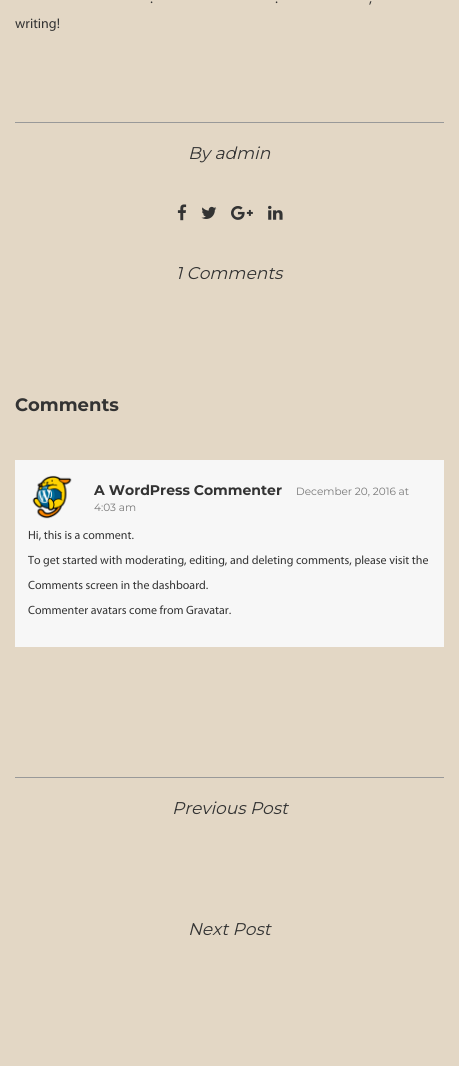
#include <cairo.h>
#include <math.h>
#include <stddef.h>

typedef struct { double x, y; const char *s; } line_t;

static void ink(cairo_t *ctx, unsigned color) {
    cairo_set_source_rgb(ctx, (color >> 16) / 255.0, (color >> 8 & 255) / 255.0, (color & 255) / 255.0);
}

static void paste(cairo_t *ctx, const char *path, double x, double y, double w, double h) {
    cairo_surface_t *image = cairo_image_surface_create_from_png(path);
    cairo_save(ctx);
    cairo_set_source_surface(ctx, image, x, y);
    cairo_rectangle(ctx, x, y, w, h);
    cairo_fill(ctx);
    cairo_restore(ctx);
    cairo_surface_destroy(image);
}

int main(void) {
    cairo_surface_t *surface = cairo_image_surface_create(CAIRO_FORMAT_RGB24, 459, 1066);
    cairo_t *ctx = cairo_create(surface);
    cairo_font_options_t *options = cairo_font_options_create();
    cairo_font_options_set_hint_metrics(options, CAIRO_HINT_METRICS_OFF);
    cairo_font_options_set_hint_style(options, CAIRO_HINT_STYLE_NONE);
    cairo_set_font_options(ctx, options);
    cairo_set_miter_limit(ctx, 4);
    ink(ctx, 0xE3D7C5);
    cairo_paint(ctx);
    cairo_select_font_face(ctx, "Myriad", CAIRO_FONT_SLANT_NORMAL, CAIRO_FONT_WEIGHT_NORMAL);
    cairo_set_font_size(ctx, 14);
    ink(ctx, 0x333333);
    {
        static const line_t items[] = {
            {150, 3, "."},
            {275, 3, "."},
            {369, 3, ","},
            {15, 28, "writing!"},
        };
        for (size_t i = 0; i < sizeof items / sizeof *items; i++) {
            cairo_move_to(ctx, items[i].x, items[i].y);
            cairo_show_text(ctx, items[i].s);
        }
    }
    ink(ctx, 0x999999);
    cairo_rectangle(ctx, 15, 122, 429, 1);
    cairo_fill(ctx);
    cairo_select_font_face(ctx, "Montserrat", CAIRO_FONT_SLANT_ITALIC, CAIRO_FONT_WEIGHT_NORMAL);
    cairo_set_font_size(ctx, 17);
    ink(ctx, 0x333333);
    cairo_move_to(ctx, 188, 159);
    cairo_show_text(ctx, "By admin");
    paste(ctx, "media/1.png", 177, 204, 10, 17);
    paste(ctx, "media/2.png", 201, 206, 16, 13);
    paste(ctx, "media/3.png", 231, 206, 22, 14);
    paste(ctx, "media/4.png", 268, 205, 15, 15);
    cairo_move_to(ctx, 176, 279);
    cairo_show_text(ctx, "1 Comments");
    cairo_select_font_face(ctx, "Montserrat", CAIRO_FONT_SLANT_NORMAL, CAIRO_FONT_WEIGHT_BOLD);
    cairo_set_font_size(ctx, 18);
    cairo_move_to(ctx, 15, 411);
    cairo_show_text(ctx, "Comments");
    ink(ctx, 0xF7F7F7);
    cairo_rectangle(ctx, 15, 460, 429, 187);
    cairo_fill(ctx);
    paste(ctx, "media/5.png", 32, 475, 40, 44);
    cairo_set_font_size(ctx, 14);
    ink(ctx, 0x333333);
    cairo_move_to(ctx, 94, 495);
    cairo_show_text(ctx, "A WordPress Commenter");
    cairo_select_font_face(ctx, "Montserrat", CAIRO_FONT_SLANT_NORMAL, CAIRO_FONT_WEIGHT_NORMAL);
    cairo_set_font_size(ctx, 10.5);
    ink(ctx, 0x777777);
    cairo_move_to(ctx, 296, 495);
    cairo_show_text(ctx, "December 20, 2016 at");
    cairo_move_to(ctx, 94, 511);
    cairo_show_text(ctx, "4:03 am");
    cairo_select_font_face(ctx, "Myriad", CAIRO_FONT_SLANT_NORMAL, CAIRO_FONT_WEIGHT_NORMAL);
    cairo_set_font_size(ctx, 12);
    ink(ctx, 0x333333);
    {
        static const line_t items[] = {
            {28, 539, "Hi, this is a comment."},
            {28, 564, "To get started with moderating, editing, and deleting comments, please visit the"},
            {28, 589, "Comments screen in the dashboard."},
            {28, 614, "Commenter avatars come from Gravatar."},
        };
        for (size_t i = 0; i < sizeof items / sizeof *items; i++) {
            cairo_move_to(ctx, items[i].x, items[i].y);
            cairo_show_text(ctx, items[i].s);
        }
    }
    ink(ctx, 0x999999);
    cairo_rectangle(ctx, 15, 777, 429, 1);
    cairo_fill(ctx);
    cairo_select_font_face(ctx, "Montserrat", CAIRO_FONT_SLANT_ITALIC, CAIRO_FONT_WEIGHT_NORMAL);
    cairo_set_font_size(ctx, 17);
    ink(ctx, 0x333333);
    cairo_move_to(ctx, 172, 814);
    cairo_show_text(ctx, "Previous Post");
    cairo_move_to(ctx, 188, 935);
    cairo_show_text(ctx, "Next Post");
    cairo_surface_write_to_png(surface, "image.png");
    cairo_font_options_destroy(options);
    cairo_destroy(ctx);
    cairo_surface_destroy(surface);
    return 0;
}
